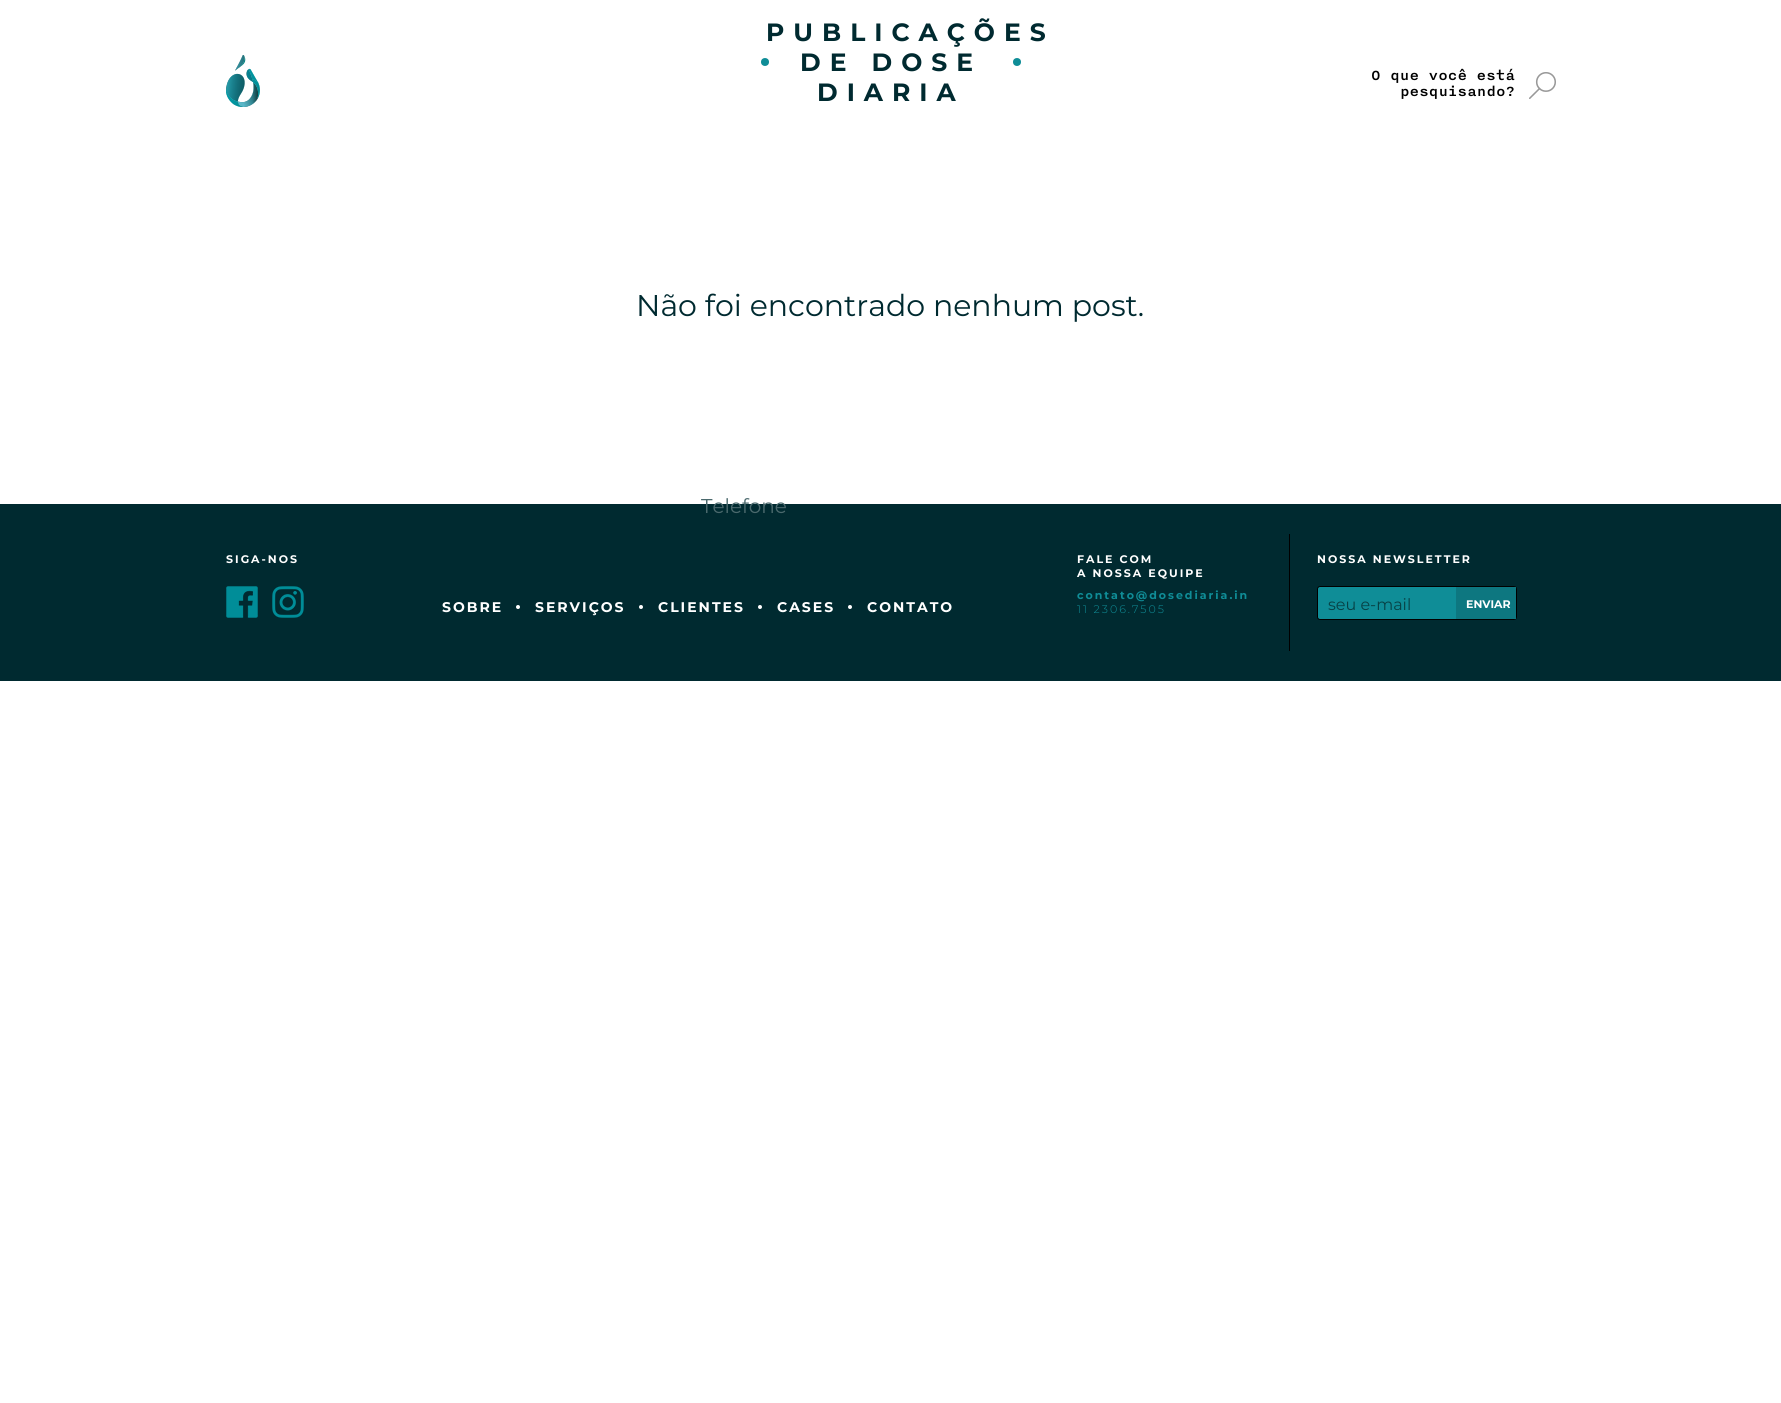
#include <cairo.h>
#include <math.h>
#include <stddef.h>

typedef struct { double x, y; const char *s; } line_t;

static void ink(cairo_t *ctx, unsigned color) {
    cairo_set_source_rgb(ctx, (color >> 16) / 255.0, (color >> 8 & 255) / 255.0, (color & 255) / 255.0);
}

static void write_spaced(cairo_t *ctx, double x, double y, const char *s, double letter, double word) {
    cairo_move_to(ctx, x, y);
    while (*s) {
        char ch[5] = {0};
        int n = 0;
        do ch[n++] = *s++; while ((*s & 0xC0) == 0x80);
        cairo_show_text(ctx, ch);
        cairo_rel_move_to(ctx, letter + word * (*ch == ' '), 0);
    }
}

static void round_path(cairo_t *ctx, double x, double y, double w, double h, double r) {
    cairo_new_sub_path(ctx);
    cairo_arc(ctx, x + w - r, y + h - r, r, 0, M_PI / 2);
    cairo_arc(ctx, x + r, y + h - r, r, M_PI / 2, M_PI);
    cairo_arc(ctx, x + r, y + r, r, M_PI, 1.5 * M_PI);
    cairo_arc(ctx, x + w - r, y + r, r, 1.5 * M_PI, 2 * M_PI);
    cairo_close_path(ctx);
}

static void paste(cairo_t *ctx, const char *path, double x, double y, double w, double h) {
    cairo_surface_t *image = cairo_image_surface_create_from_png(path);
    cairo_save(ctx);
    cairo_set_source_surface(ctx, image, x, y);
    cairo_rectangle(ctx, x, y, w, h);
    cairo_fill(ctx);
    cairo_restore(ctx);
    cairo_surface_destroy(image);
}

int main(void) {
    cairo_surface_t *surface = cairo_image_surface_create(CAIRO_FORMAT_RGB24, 1781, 1403);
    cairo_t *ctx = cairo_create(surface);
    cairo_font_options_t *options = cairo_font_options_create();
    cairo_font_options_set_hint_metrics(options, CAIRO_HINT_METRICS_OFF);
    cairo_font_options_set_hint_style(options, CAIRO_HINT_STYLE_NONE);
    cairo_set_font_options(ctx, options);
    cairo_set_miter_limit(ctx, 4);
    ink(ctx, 0xFFFFFF);
    cairo_paint(ctx);
    paste(ctx, "media/1.png", 226, 55, 34, 52);
    ink(ctx, 0x0F8D97);
    cairo_arc(ctx, 765, 62, 4, 0, 2 * M_PI);
    cairo_fill(ctx);
    cairo_select_font_face(ctx, "Montserrat", CAIRO_FONT_SLANT_NORMAL, CAIRO_FONT_WEIGHT_BOLD);
    cairo_set_font_size(ctx, 25);
    ink(ctx, 0x002A30);
    {
        static const line_t items[] = {
            {766, 41, "PUBLICAÇÕES"},
            {800, 71, "DE DOSE"},
            {817, 101, "DIARIA"},
        };
        for (size_t i = 0; i < sizeof items / sizeof *items; i++) {
            write_spaced(ctx, items[i].x, items[i].y, items[i].s, 9, 0);
        }
    }
    ink(ctx, 0x0F8D97);
    cairo_new_path(ctx);
    cairo_arc(ctx, 1017, 62, 4, 0, 2 * M_PI);
    cairo_fill(ctx);
    paste(ctx, "media/2.png", 1529, 72, 27, 27);
    cairo_select_font_face(ctx, "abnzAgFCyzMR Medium", CAIRO_FONT_SLANT_NORMAL, CAIRO_FONT_WEIGHT_NORMAL);
    cairo_set_font_size(ctx, 16);
    ink(ctx, 0x000000);
    cairo_move_to(ctx, 1371, 80);
    cairo_show_text(ctx, "O que você está");
    cairo_move_to(ctx, 1400, 96);
    cairo_show_text(ctx, "pesquisando?");
    cairo_select_font_face(ctx, "Montserrat", CAIRO_FONT_SLANT_NORMAL, CAIRO_FONT_WEIGHT_NORMAL);
    cairo_set_font_size(ctx, 30);
    ink(ctx, 0x002A30);
    cairo_move_to(ctx, 636, 316);
    cairo_show_text(ctx, "Não foi encontrado nenhum post.");
    cairo_rectangle(ctx, 0, 504, 1781, 177);
    cairo_fill(ctx);
    cairo_set_font_size(ctx, 20);
    ink(ctx, 0x4B696D);
    cairo_move_to(ctx, 701, 513);
    cairo_show_text(ctx, "Telefone");
    cairo_select_font_face(ctx, "Montserrat", CAIRO_FONT_SLANT_NORMAL, CAIRO_FONT_WEIGHT_BOLD);
    cairo_set_font_size(ctx, 11);
    ink(ctx, 0xFFFFFF);
    write_spaced(ctx, 226, 563, "SIGA-NOS", 2, 0);
    paste(ctx, "media/3.png", 226, 586, 32, 32);
    paste(ctx, "media/4.png", 272, 586, 32, 32);
    cairo_set_font_size(ctx, 14);
    write_spaced(ctx, 442, 612, "SOBRE", 2, 0);
    cairo_new_path(ctx);
    cairo_arc(ctx, 518, 607, 2, 0, 2 * M_PI);
    cairo_fill(ctx);
    write_spaced(ctx, 535, 612, "SERVIÇOS", 2, 0);
    cairo_new_path(ctx);
    cairo_arc(ctx, 641, 607, 2, 0, 2 * M_PI);
    cairo_fill(ctx);
    write_spaced(ctx, 658, 612, "CLIENTES", 2, 0);
    cairo_new_path(ctx);
    cairo_arc(ctx, 760, 607, 2, 0, 2 * M_PI);
    cairo_fill(ctx);
    write_spaced(ctx, 777, 612, "CASES", 2, 0);
    cairo_new_path(ctx);
    cairo_arc(ctx, 850, 607, 2, 0, 2 * M_PI);
    cairo_fill(ctx);
    write_spaced(ctx, 867, 612, "CONTATO", 2, 0);
    ink(ctx, 0x000000);
    cairo_rectangle(ctx, 1289, 534, 1, 117);
    cairo_fill(ctx);
    cairo_set_font_size(ctx, 11);
    ink(ctx, 0xFFFFFF);
    write_spaced(ctx, 1077, 563, "FALE COM", 2, 0);
    write_spaced(ctx, 1077, 577, "A NOSSA EQUIPE", 2, 0);
    ink(ctx, 0x0F8D97);
    write_spaced(ctx, 1077, 599, "contato@dosediaria.in", 2, 0);
    cairo_select_font_face(ctx, "Montserrat Light", CAIRO_FONT_SLANT_NORMAL, CAIRO_FONT_WEIGHT_NORMAL);
    write_spaced(ctx, 1077, 613, "11 2306.7505", 2, 0);
    cairo_select_font_face(ctx, "Montserrat", CAIRO_FONT_SLANT_NORMAL, CAIRO_FONT_WEIGHT_BOLD);
    ink(ctx, 0xFFFFFF);
    write_spaced(ctx, 1317, 563, "NOSSA NEWSLETTER", 2, 0);
    ink(ctx, 0x0F8D97);
    round_path(ctx, 1317.5, 586.5, 199, 33, 2.5);
    cairo_fill_preserve(ctx);
    ink(ctx, 0x000000);
    cairo_set_line_width(ctx, 1);
    cairo_stroke(ctx);
    cairo_select_font_face(ctx, "Montserrat", CAIRO_FONT_SLANT_NORMAL, CAIRO_FONT_WEIGHT_NORMAL);
    cairo_set_font_size(ctx, 16);
    ink(ctx, 0x074145);
    cairo_move_to(ctx, 1328, 610);
    cairo_show_text(ctx, "seu e-mail");
    ink(ctx, 0x0D7780);
    cairo_rectangle(ctx, 1456, 587, 60, 32);
    cairo_fill(ctx);
    cairo_select_font_face(ctx, "Montserrat", CAIRO_FONT_SLANT_NORMAL, CAIRO_FONT_WEIGHT_BOLD);
    cairo_set_font_size(ctx, 11);
    ink(ctx, 0xFFFFFF);
    cairo_move_to(ctx, 1466, 608);
    cairo_show_text(ctx, "ENVIAR");
    cairo_surface_write_to_png(surface, "image.png");
    cairo_font_options_destroy(options);
    cairo_destroy(ctx);
    cairo_surface_destroy(surface);
    return 0;
}
